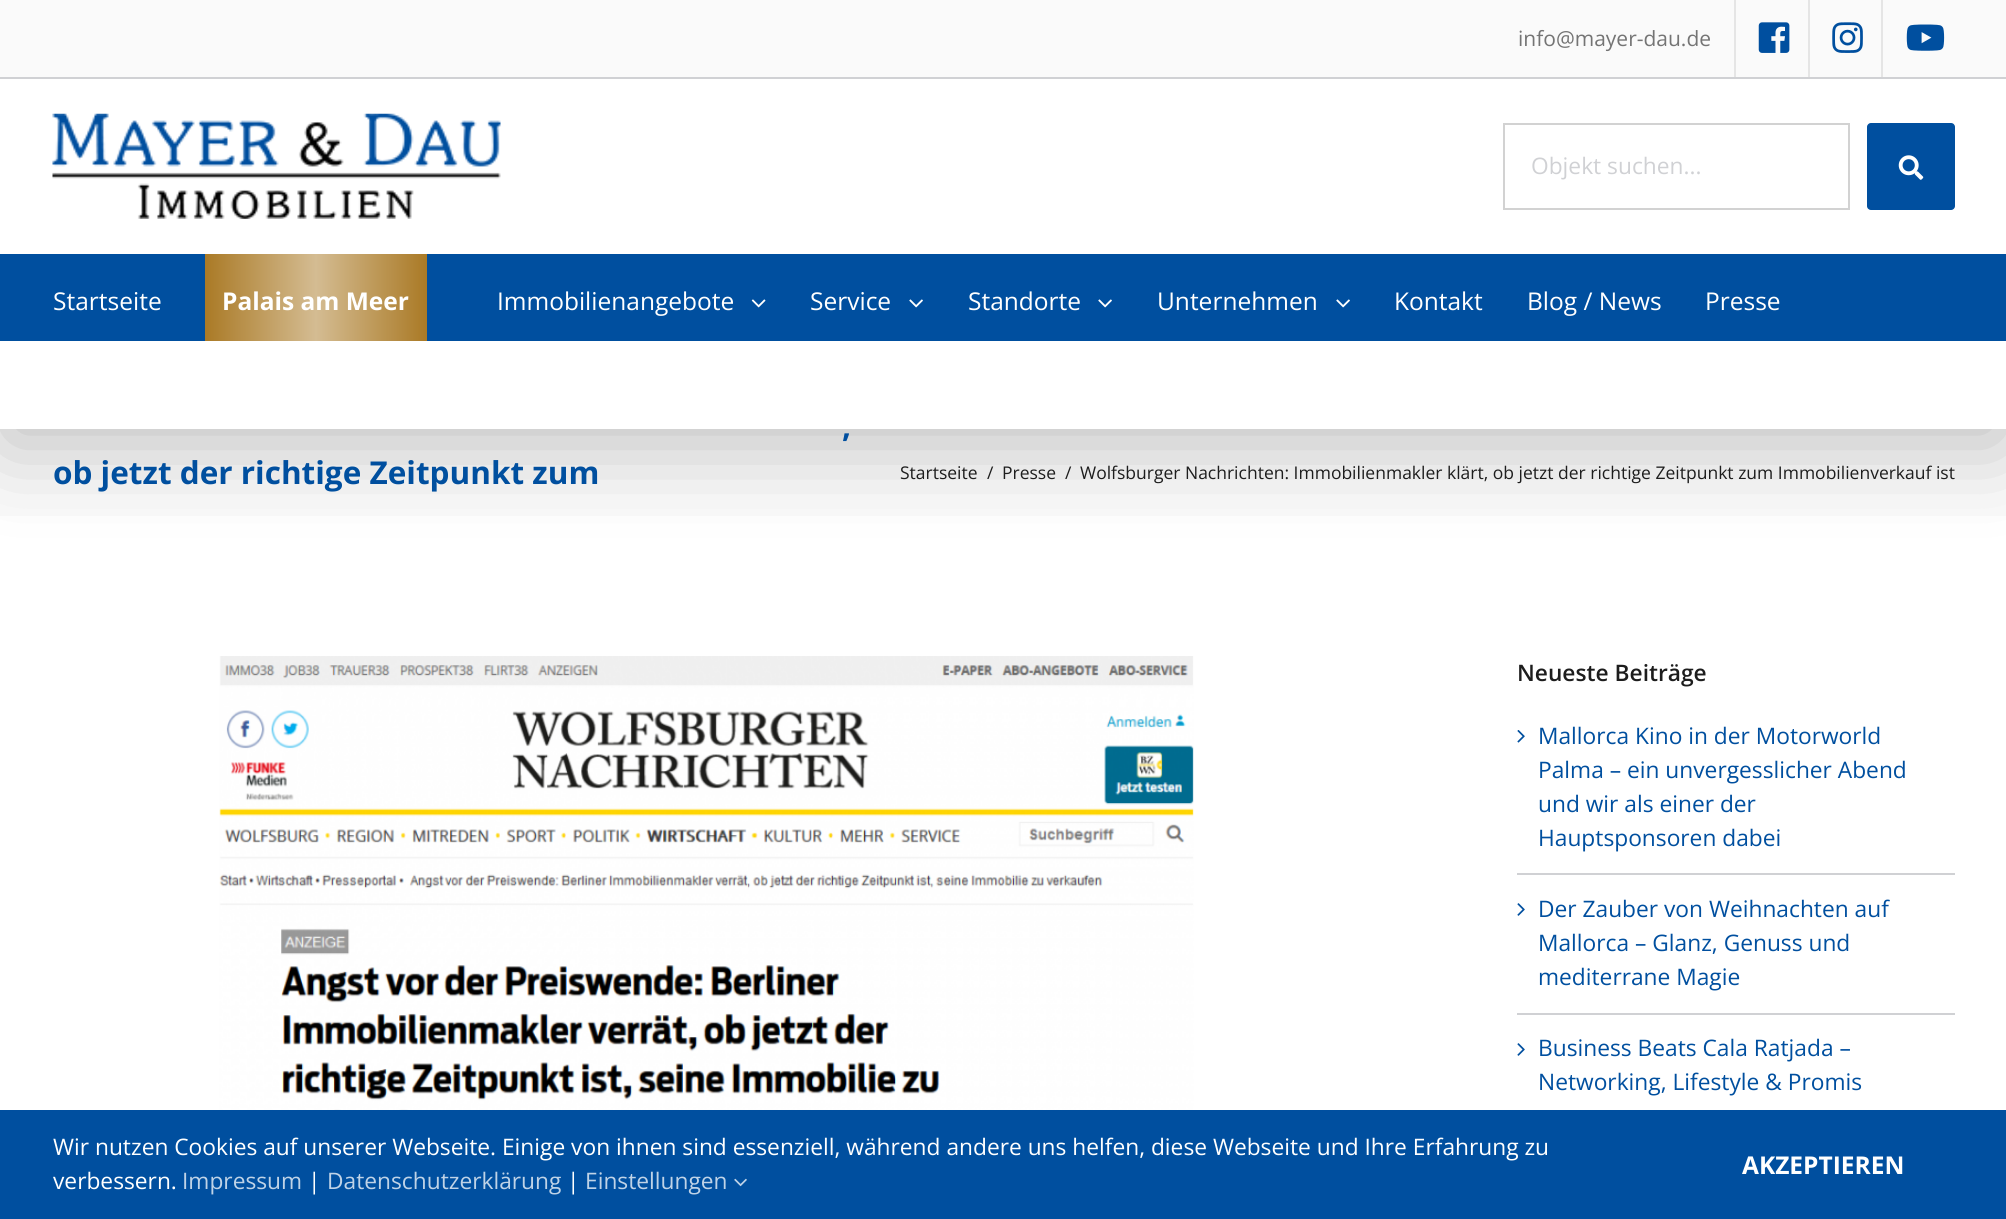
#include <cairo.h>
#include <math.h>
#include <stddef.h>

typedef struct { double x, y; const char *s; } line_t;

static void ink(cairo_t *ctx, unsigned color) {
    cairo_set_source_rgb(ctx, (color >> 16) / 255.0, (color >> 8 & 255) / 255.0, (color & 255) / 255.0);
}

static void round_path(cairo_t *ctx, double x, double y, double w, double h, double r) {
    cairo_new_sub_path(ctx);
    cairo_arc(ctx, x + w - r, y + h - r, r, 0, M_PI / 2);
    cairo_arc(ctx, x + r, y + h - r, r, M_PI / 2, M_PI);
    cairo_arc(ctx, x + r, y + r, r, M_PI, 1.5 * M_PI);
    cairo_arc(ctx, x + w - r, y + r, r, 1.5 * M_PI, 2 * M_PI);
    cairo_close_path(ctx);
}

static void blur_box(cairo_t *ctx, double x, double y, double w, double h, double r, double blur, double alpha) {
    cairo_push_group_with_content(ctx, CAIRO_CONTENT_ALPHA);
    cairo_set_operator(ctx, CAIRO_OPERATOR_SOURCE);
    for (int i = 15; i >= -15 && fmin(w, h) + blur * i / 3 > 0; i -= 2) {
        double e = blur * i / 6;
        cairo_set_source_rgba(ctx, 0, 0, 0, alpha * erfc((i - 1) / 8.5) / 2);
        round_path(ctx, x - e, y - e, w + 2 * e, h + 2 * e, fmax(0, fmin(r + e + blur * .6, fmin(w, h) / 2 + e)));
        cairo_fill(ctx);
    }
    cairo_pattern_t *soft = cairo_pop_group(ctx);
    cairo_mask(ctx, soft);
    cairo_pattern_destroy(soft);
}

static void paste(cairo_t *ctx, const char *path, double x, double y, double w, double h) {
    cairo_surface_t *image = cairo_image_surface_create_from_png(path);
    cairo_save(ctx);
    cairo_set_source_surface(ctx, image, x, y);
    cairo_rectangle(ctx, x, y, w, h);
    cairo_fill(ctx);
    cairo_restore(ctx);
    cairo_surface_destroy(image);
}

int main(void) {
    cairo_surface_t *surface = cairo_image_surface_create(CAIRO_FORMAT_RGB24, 2006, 1219);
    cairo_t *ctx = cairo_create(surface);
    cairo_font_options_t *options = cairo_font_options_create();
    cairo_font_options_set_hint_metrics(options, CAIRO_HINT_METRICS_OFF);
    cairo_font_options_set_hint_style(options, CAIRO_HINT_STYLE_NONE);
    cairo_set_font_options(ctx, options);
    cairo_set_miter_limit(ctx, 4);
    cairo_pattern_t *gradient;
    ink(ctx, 0xFFFFFF);
    cairo_paint(ctx);
    ink(ctx, 0xFAFAFA);
    cairo_rectangle(ctx, 0, 429, 2006, 87);
    cairo_fill(ctx);
    cairo_save(ctx);
    cairo_set_fill_rule(ctx, CAIRO_FILL_RULE_EVEN_ODD);
    cairo_new_path(ctx);
    cairo_move_to(ctx, 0, 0);
    cairo_line_to(ctx, 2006, 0);
    cairo_line_to(ctx, 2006, 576);
    cairo_line_to(ctx, 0, 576);
    cairo_close_path(ctx);
    cairo_move_to(ctx, 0, 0);
    cairo_line_to(ctx, 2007, 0);
    cairo_line_to(ctx, 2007, 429);
    cairo_line_to(ctx, 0, 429);
    cairo_close_path(ctx);
    cairo_clip(ctx);
    ink(ctx, 0x000000);
    blur_box(ctx, 4, 21, 2000, 422, 0, 44, 0.25);
    cairo_restore(ctx);
    cairo_rectangle(ctx, 0, 0, 2006, 77);
    cairo_fill(ctx);
    ink(ctx, 0xD0D1D4);
    cairo_rectangle(ctx, 0, 77, 2006, 2);
    cairo_fill(ctx);
    cairo_select_font_face(ctx, "Open Sans", CAIRO_FONT_SLANT_NORMAL, CAIRO_FONT_WEIGHT_NORMAL);
    cairo_set_font_size(ctx, 21);
    ink(ctx, 0x747474);
    cairo_move_to(ctx, 1518, 46);
    cairo_show_text(ctx, "info@mayer-dau.de");
    ink(ctx, 0xE5E5E5);
    cairo_rectangle(ctx, 1734, 0, 2, 77);
    cairo_fill(ctx);
    paste(ctx, "media/1.png", 1758, 22, 32, 31);
    cairo_rectangle(ctx, 1808, 0, 2, 77);
    cairo_fill(ctx);
    paste(ctx, "media/2.png", 1832, 22, 31, 31);
    cairo_rectangle(ctx, 1881, 0, 2, 77);
    cairo_fill(ctx);
    paste(ctx, "media/3.png", 1906, 24, 39, 27);
    paste(ctx, "media/4.png", 52, 113, 449, 106);
    cairo_rectangle(ctx, 1504, 124, 345, 85);
    ink(ctx, 0xD2D2D2);
    cairo_stroke(ctx);
    cairo_set_font_size(ctx, 22.75);
    ink(ctx, 0xD0D1D4);
    cairo_move_to(ctx, 1531, 174);
    cairo_show_text(ctx, "Objekt suchen...");
    ink(ctx, 0x004F9F);
    round_path(ctx, 1867, 123, 88, 87, 4);
    cairo_fill(ctx);
    paste(ctx, "media/5.png", 1898, 155, 26, 25);
    cairo_rectangle(ctx, 0, 254, 2006, 87);
    cairo_fill(ctx);
    cairo_set_font_size(ctx, 24.5);
    ink(ctx, 0xFFFFFF);
    cairo_move_to(ctx, 53, 310);
    cairo_show_text(ctx, "Startseite");
    gradient = cairo_pattern_create_linear(205, 298, 427, 298);
    cairo_pattern_add_color_stop_rgba(gradient, 0, 0.667, 0.478, 0.149, 1);
    cairo_pattern_add_color_stop_rgba(gradient, 0.5, 0.831, 0.737, 0.573, 1);
    cairo_pattern_add_color_stop_rgba(gradient, 1, 0.667, 0.478, 0.149, 1);
    cairo_set_source(ctx, gradient);
    cairo_pattern_destroy(gradient);
    cairo_rectangle(ctx, 205, 254, 222, 87);
    cairo_fill(ctx);
    cairo_select_font_face(ctx, "Open Sans", CAIRO_FONT_SLANT_NORMAL, CAIRO_FONT_WEIGHT_BOLD);
    ink(ctx, 0xFFFFFF);
    cairo_move_to(ctx, 222, 310);
    cairo_show_text(ctx, "Palais am Meer");
    cairo_select_font_face(ctx, "Open Sans", CAIRO_FONT_SLANT_NORMAL, CAIRO_FONT_WEIGHT_NORMAL);
    cairo_move_to(ctx, 497, 310);
    cairo_show_text(ctx, "Immobilienangebote");
    paste(ctx, "media/6.png", 751, 299, 15, 9);
    cairo_move_to(ctx, 810, 310);
    cairo_show_text(ctx, "Service");
    paste(ctx, "media/7.png", 909, 299, 14, 9);
    cairo_move_to(ctx, 968, 310);
    cairo_show_text(ctx, "Standorte");
    paste(ctx, "media/7.png", 1098, 299, 14, 9);
    cairo_move_to(ctx, 1157, 310);
    cairo_show_text(ctx, "Unternehmen");
    paste(ctx, "media/7.png", 1336, 299, 14, 9);
    {
        static const line_t items[] = {
            {1394, 310, "Kontakt"},
            {1527, 310, "Blog / News"},
            {1705, 310, "Presse"},
        };
        for (size_t i = 0; i < sizeof items / sizeof *items; i++) {
            cairo_move_to(ctx, items[i].x, items[i].y);
            cairo_show_text(ctx, items[i].s);
        }
    }
    cairo_select_font_face(ctx, "Open Sans", CAIRO_FONT_SLANT_NORMAL, CAIRO_FONT_WEIGHT_BOLD);
    cairo_set_font_size(ctx, 31.5);
    ink(ctx, 0x004F9F);
    cairo_move_to(ctx, 842, 437);
    cairo_show_text(ctx, ",");
    cairo_move_to(ctx, 53, 484);
    cairo_show_text(ctx, "ob jetzt der richtige Zeitpunkt zum");
    cairo_select_font_face(ctx, "Open Sans", CAIRO_FONT_SLANT_NORMAL, CAIRO_FONT_WEIGHT_NORMAL);
    cairo_set_font_size(ctx, 17.5);
    ink(ctx, 0x1D1D1D);
    {
        static const line_t items[] = {
            {900, 479, "Startseite"},
            {987, 479, "/"},
            {1002, 479, "Presse"},
            {1065, 479, "/"},
            {1080, 479, "Wolfsburger Nachrichten: Immobilienmakler klärt, ob jetzt der richtige Zeitpunkt zum Immobilienverkauf ist"},
        };
        for (size_t i = 0; i < sizeof items / sizeof *items; i++) {
            cairo_move_to(ctx, items[i].x, items[i].y);
            cairo_show_text(ctx, items[i].s);
        }
    }
    paste(ctx, "media/8.png", 219, 656, 975, 454);
    cairo_select_font_face(ctx, "Open Sans SemiBold", CAIRO_FONT_SLANT_NORMAL, CAIRO_FONT_WEIGHT_NORMAL);
    cairo_set_font_size(ctx, 22.75);
    cairo_move_to(ctx, 1517, 681);
    cairo_show_text(ctx, "Neueste Beiträge");
    ink(ctx, 0xD0D1D4);
    cairo_rectangle(ctx, 1517, 873, 438, 2);
    cairo_fill(ctx);
    paste(ctx, "media/9.png", 1517, 730, 8, 13);
    cairo_select_font_face(ctx, "Open Sans", CAIRO_FONT_SLANT_NORMAL, CAIRO_FONT_WEIGHT_NORMAL);
    ink(ctx, 0x004F9F);
    {
        static const line_t items[] = {
            {1538, 744, "Mallorca Kino in der Motorworld"},
            {1538, 778, "Palma – ein unvergesslicher Abend"},
            {1538, 812, "und wir als einer der"},
            {1538, 846, "Hauptsponsoren dabei"},
        };
        for (size_t i = 0; i < sizeof items / sizeof *items; i++) {
            cairo_move_to(ctx, items[i].x, items[i].y);
            cairo_show_text(ctx, items[i].s);
        }
    }
    ink(ctx, 0xD0D1D4);
    cairo_rectangle(ctx, 1517, 1013, 438, 2);
    cairo_fill(ctx);
    paste(ctx, "media/10.png", 1517, 903, 8, 13);
    ink(ctx, 0x004F9F);
    {
        static const line_t items[] = {
            {1538, 917, "Der Zauber von Weihnachten auf"},
            {1538, 951, "Mallorca – Glanz, Genuss und"},
            {1538, 985, "mediterrane Magie"},
        };
        for (size_t i = 0; i < sizeof items / sizeof *items; i++) {
            cairo_move_to(ctx, items[i].x, items[i].y);
            cairo_show_text(ctx, items[i].s);
        }
    }
    paste(ctx, "media/10.png", 1517, 1043, 8, 13);
    cairo_move_to(ctx, 1538, 1056);
    cairo_show_text(ctx, "Business Beats Cala Ratjada –");
    cairo_move_to(ctx, 1538, 1090);
    cairo_show_text(ctx, "Networking, Lifestyle & Promis");
    cairo_rectangle(ctx, 0, 1110, 2006, 109);
    cairo_fill(ctx);
    ink(ctx, 0xFFFFFF);
    cairo_move_to(ctx, 53, 1155);
    cairo_show_text(ctx, "Wir nutzen Cookies auf unserer Webseite. Einige von ihnen sind essenziell, während andere uns helfen, diese Webseite und Ihre Erfahrung zu");
    cairo_move_to(ctx, 53, 1189);
    cairo_show_text(ctx, "verbessern.");
    ink(ctx, 0xBFD3E7);
    cairo_move_to(ctx, 182, 1189);
    cairo_show_text(ctx, "Impressum");
    ink(ctx, 0xFFFFFF);
    cairo_move_to(ctx, 308, 1189);
    cairo_show_text(ctx, "|");
    ink(ctx, 0xBFD3E7);
    cairo_move_to(ctx, 327, 1189);
    cairo_show_text(ctx, "Datenschutzerklärung");
    ink(ctx, 0xFFFFFF);
    cairo_move_to(ctx, 567, 1189);
    cairo_show_text(ctx, "|");
    ink(ctx, 0xBFD3E7);
    cairo_move_to(ctx, 585, 1189);
    cairo_show_text(ctx, "Einstellungen");
    paste(ctx, "media/11.png", 734, 1178, 13, 9);
    cairo_select_font_face(ctx, "Open Sans", CAIRO_FONT_SLANT_NORMAL, CAIRO_FONT_WEIGHT_BOLD);
    cairo_set_font_size(ctx, 24.5);
    ink(ctx, 0xFFFFFF);
    cairo_move_to(ctx, 1742, 1174);
    cairo_show_text(ctx, "AKZEPTIEREN");
    cairo_surface_write_to_png(surface, "image.png");
    cairo_font_options_destroy(options);
    cairo_destroy(ctx);
    cairo_surface_destroy(surface);
    return 0;
}
